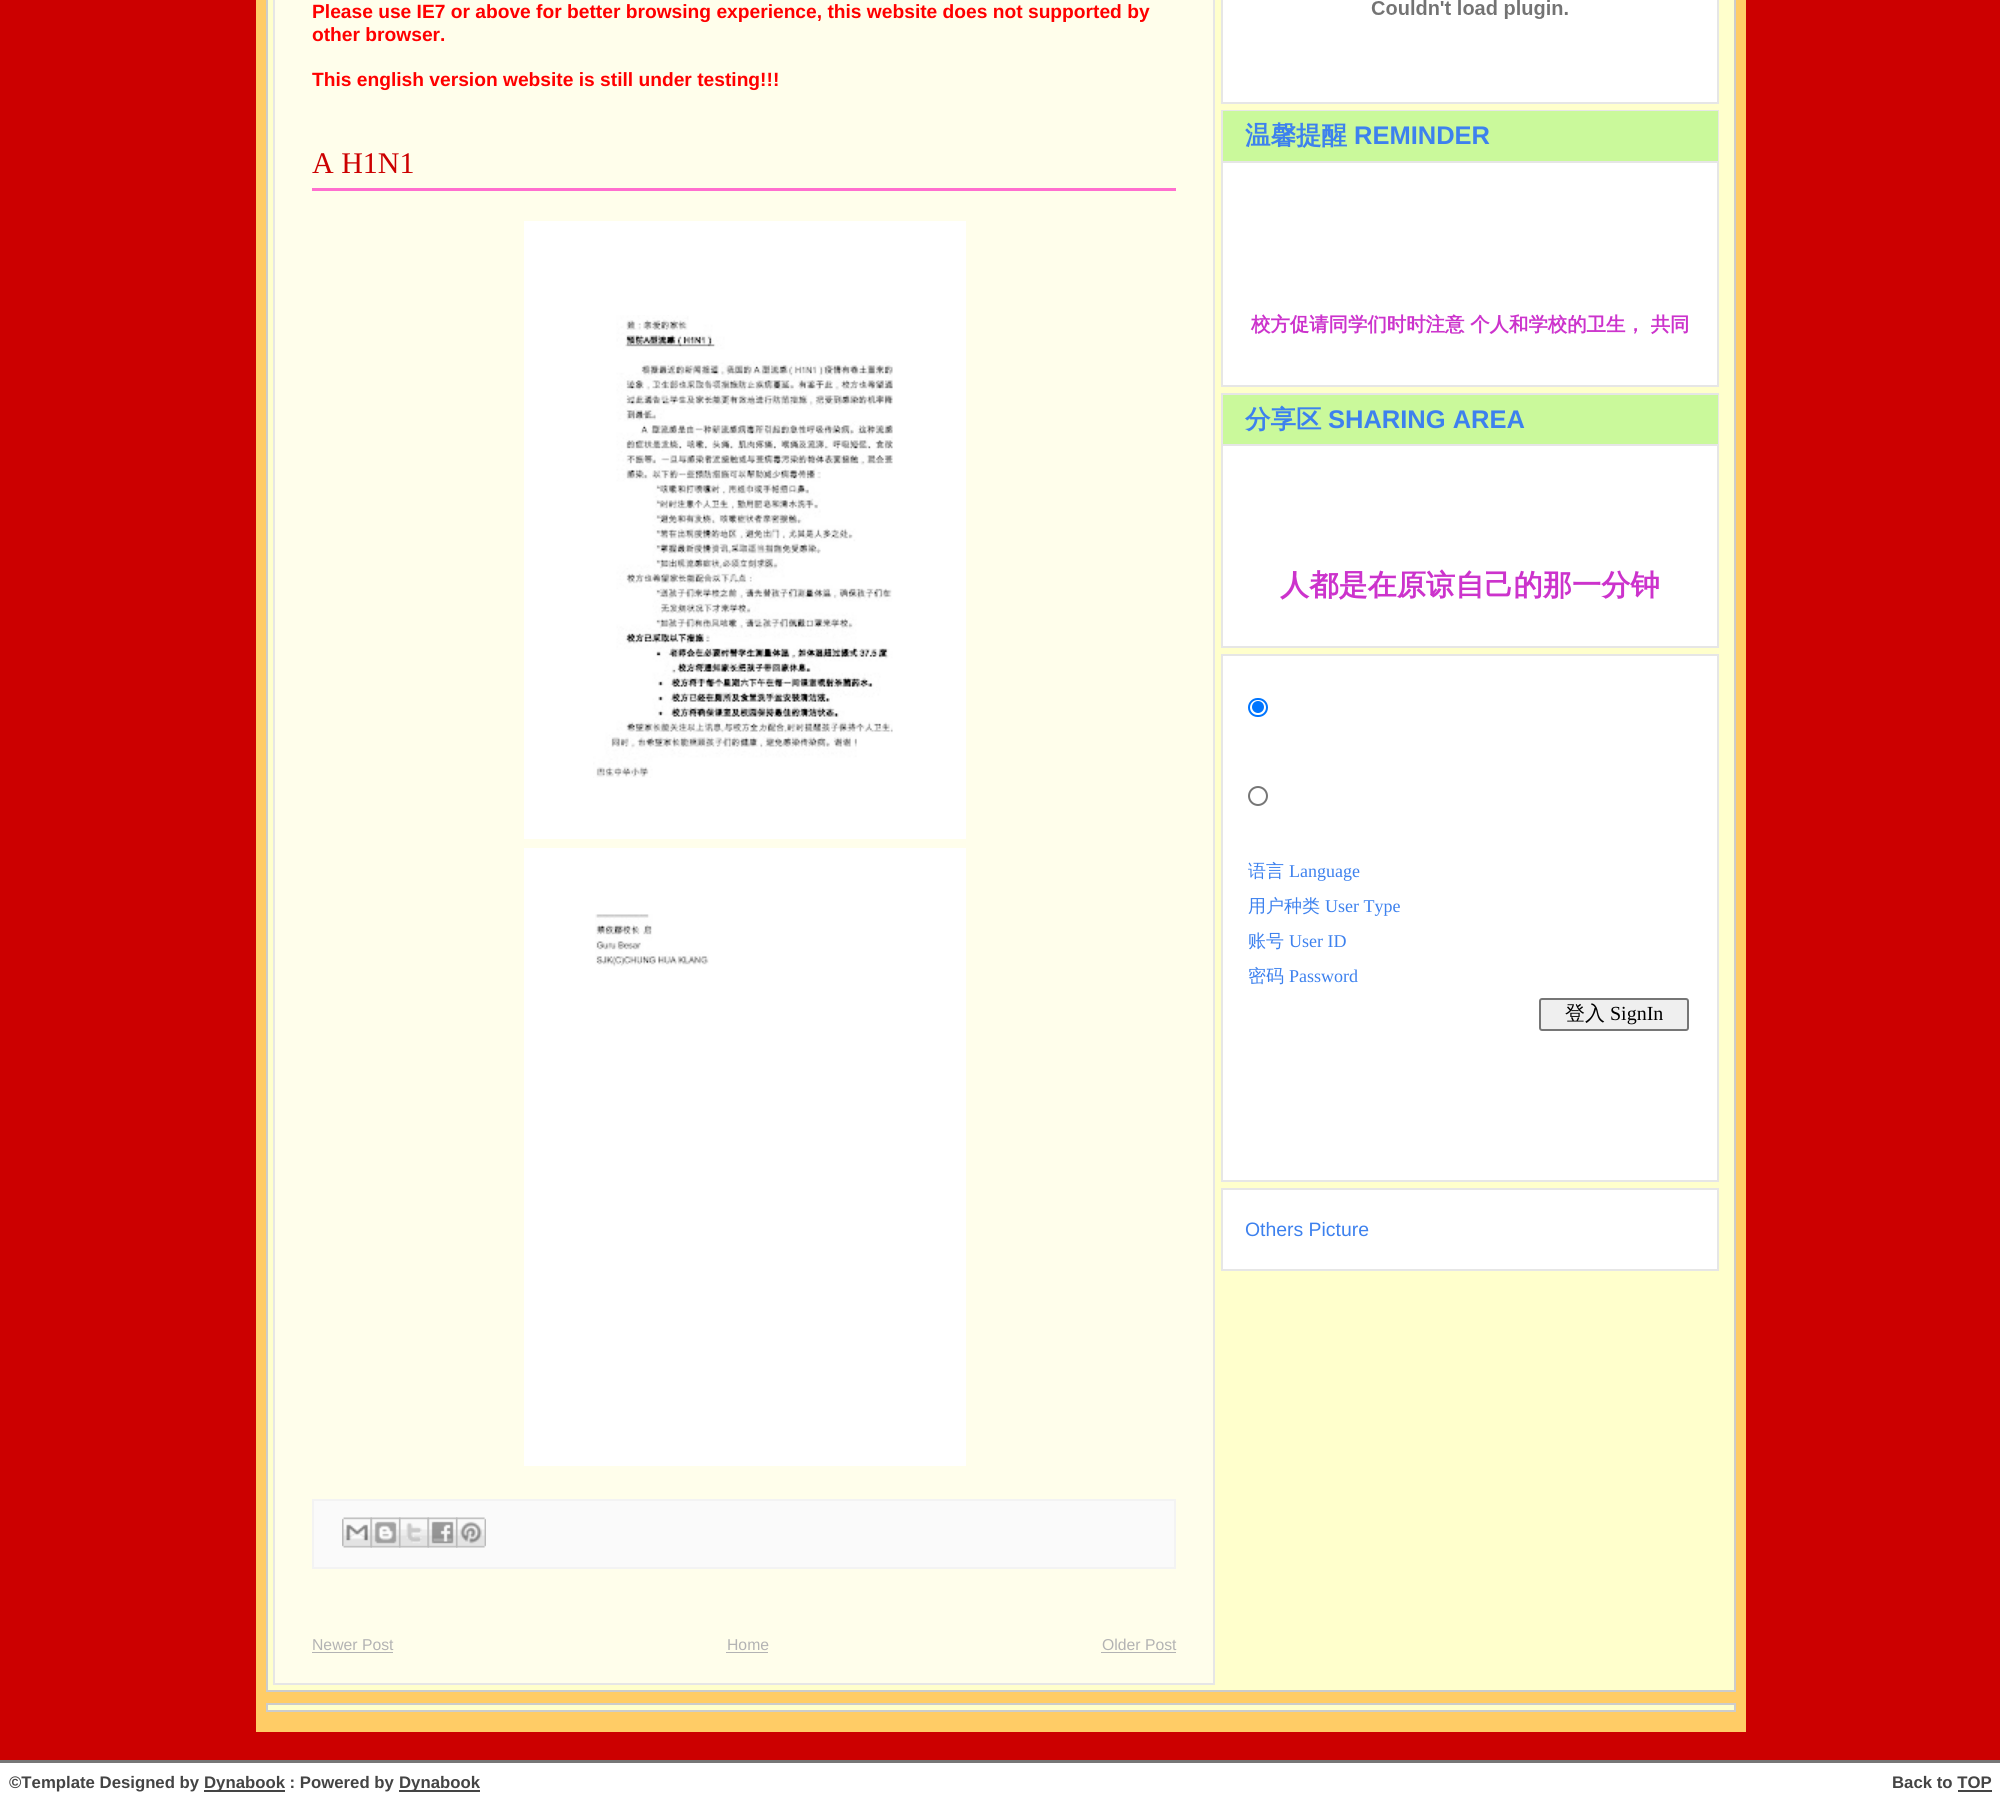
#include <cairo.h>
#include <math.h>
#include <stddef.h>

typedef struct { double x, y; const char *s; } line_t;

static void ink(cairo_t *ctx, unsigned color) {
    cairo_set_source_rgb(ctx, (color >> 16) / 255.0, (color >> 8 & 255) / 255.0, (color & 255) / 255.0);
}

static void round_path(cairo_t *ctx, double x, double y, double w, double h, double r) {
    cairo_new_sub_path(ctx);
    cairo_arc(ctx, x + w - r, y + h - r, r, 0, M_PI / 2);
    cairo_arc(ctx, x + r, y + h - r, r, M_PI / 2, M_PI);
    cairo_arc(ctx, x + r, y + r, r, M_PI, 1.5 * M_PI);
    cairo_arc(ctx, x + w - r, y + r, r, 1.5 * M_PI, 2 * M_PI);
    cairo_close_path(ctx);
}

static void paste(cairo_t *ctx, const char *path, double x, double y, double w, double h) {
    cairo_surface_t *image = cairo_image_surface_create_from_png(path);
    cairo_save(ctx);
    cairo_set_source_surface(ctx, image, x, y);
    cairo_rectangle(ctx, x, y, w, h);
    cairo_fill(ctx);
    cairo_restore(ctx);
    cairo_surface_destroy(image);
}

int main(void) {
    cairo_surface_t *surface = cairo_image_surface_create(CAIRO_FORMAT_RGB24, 2000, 1798);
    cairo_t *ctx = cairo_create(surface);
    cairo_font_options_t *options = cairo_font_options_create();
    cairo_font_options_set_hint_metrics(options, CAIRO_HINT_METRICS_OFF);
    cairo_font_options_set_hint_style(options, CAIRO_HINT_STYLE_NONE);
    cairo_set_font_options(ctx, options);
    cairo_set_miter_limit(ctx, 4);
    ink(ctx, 0xCC0000);
    cairo_paint(ctx);
    ink(ctx, 0xFFCC66);
    cairo_rectangle(ctx, 256, 0, 1490, 1732);
    cairo_fill(ctx);
    ink(ctx, 0xFFFFCC);
    cairo_rectangle(ctx, 267, -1, 1468, 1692);
    cairo_fill_preserve(ctx);
    ink(ctx, 0xCCCCCC);
    cairo_stroke(ctx);
    ink(ctx, 0xFFFEEB);
    cairo_rectangle(ctx, 274, -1, 940, 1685);
    cairo_fill_preserve(ctx);
    ink(ctx, 0xE6E6E6);
    cairo_stroke(ctx);
    cairo_select_font_face(ctx, "Liberation Sans", CAIRO_FONT_SLANT_NORMAL, CAIRO_FONT_WEIGHT_BOLD);
    cairo_set_font_size(ctx, 19.2);
    ink(ctx, 0xFF0000);
    {
        static const line_t items[] = {
            {312, 18, "Please use IE7 or above for better browsing experience, this website does not supported by"},
            {312, 41, "other browser."},
            {312, 86, "This english version website is still under testing!!!"},
        };
        for (size_t i = 0; i < sizeof items / sizeof *items; i++) {
            cairo_move_to(ctx, items[i].x, items[i].y);
            cairo_show_text(ctx, items[i].s);
        }
    }
    ink(ctx, 0xFF6FCF);
    cairo_rectangle(ctx, 312, 188, 864, 3);
    cairo_fill(ctx);
    cairo_select_font_face(ctx, "Liberation Serif", CAIRO_FONT_SLANT_NORMAL, CAIRO_FONT_WEIGHT_NORMAL);
    cairo_set_font_size(ctx, 30);
    ink(ctx, 0xCC0000);
    cairo_move_to(ctx, 312, 173);
    cairo_show_text(ctx, "A H1N1");
    ink(ctx, 0xFFFFFF);
    cairo_rectangle(ctx, 524, 221, 442, 618);
    cairo_fill(ctx);
    paste(ctx, "media/1.png", 593, 315, 300, 463);
    cairo_rectangle(ctx, 524, 848, 442, 618);
    cairo_fill(ctx);
    paste(ctx, "media/2.png", 595, 914, 114, 53);
    ink(ctx, 0xFAFAFA);
    cairo_rectangle(ctx, 313, 1500, 862, 68);
    cairo_fill_preserve(ctx);
    ink(ctx, 0xF3F3F3);
    cairo_stroke(ctx);
    paste(ctx, "media/3.png", 342, 1517, 30, 31);
    paste(ctx, "media/4.png", 370, 1517, 31, 31);
    paste(ctx, "media/5.png", 399, 1517, 30, 31);
    paste(ctx, "media/6.png", 427, 1517, 31, 31);
    paste(ctx, "media/7.png", 456, 1517, 30, 31);
    cairo_select_font_face(ctx, "Liberation Sans", CAIRO_FONT_SLANT_NORMAL, CAIRO_FONT_WEIGHT_NORMAL);
    cairo_set_font_size(ctx, 15.75);
    ink(ctx, 0xB3B3B3);
    cairo_move_to(ctx, 312, 1650);
    cairo_show_text(ctx, "Newer Post");
    cairo_rectangle(ctx, 312, 1652, 81, 1);
    cairo_fill(ctx);
    cairo_move_to(ctx, 727, 1650);
    cairo_show_text(ctx, "Home");
    cairo_rectangle(ctx, 726, 1652, 42, 1);
    cairo_fill(ctx);
    cairo_move_to(ctx, 1102, 1650);
    cairo_show_text(ctx, "Older Post");
    cairo_rectangle(ctx, 1101, 1652, 75, 1);
    cairo_fill(ctx);
    ink(ctx, 0xFFFFFF);
    cairo_rectangle(ctx, 1222, -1, 496, 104);
    cairo_fill_preserve(ctx);
    ink(ctx, 0xE6E6E6);
    cairo_stroke(ctx);
    paste(ctx, "media/8.png", 1371, 0, 197, 19);
    ink(ctx, 0xFFFFFF);
    cairo_rectangle(ctx, 1223, 163, 494, 222);
    cairo_fill(ctx);
    cairo_rectangle(ctx, 1222, 111, 496, 275);
    ink(ctx, 0xE6E6E6);
    cairo_stroke(ctx);
    ink(ctx, 0xCAF99B);
    cairo_rectangle(ctx, 1223, 111, 495, 50);
    cairo_fill(ctx);
    ink(ctx, 0xE6E6E6);
    cairo_rectangle(ctx, 1223, 161, 495, 2);
    cairo_fill(ctx);
    cairo_select_font_face(ctx, "WenQuanYi Zen Hei", CAIRO_FONT_SLANT_NORMAL, CAIRO_FONT_WEIGHT_BOLD);
    cairo_set_font_size(ctx, 25.5);
    ink(ctx, 0x3D81EE);
    cairo_move_to(ctx, 1245, 144);
    cairo_show_text(ctx, "温馨提醒");
    cairo_select_font_face(ctx, "Liberation Sans", CAIRO_FONT_SLANT_NORMAL, CAIRO_FONT_WEIGHT_BOLD);
    cairo_move_to(ctx, 1354, 144);
    cairo_show_text(ctx, "REMINDER");
    cairo_select_font_face(ctx, "WenQuanYi Zen Hei", CAIRO_FONT_SLANT_NORMAL, CAIRO_FONT_WEIGHT_BOLD);
    cairo_set_font_size(ctx, 19.4);
    ink(ctx, 0xCC33CC);
    cairo_move_to(ctx, 1251, 331);
    cairo_show_text(ctx, "校方促请同学们时时注意 个人和学校的卫生， 共同");
    ink(ctx, 0xFFFFFF);
    cairo_rectangle(ctx, 1223, 446, 494, 200);
    cairo_fill(ctx);
    cairo_rectangle(ctx, 1222, 394, 496, 253);
    ink(ctx, 0xE6E6E6);
    cairo_stroke(ctx);
    ink(ctx, 0xCAF99B);
    cairo_rectangle(ctx, 1223, 395, 495, 49);
    cairo_fill(ctx);
    ink(ctx, 0xE6E6E6);
    cairo_rectangle(ctx, 1223, 444, 495, 2);
    cairo_fill(ctx);
    cairo_set_font_size(ctx, 25.5);
    ink(ctx, 0x3D81EE);
    cairo_move_to(ctx, 1245, 428);
    cairo_show_text(ctx, "分享区");
    cairo_select_font_face(ctx, "Liberation Sans", CAIRO_FONT_SLANT_NORMAL, CAIRO_FONT_WEIGHT_BOLD);
    cairo_move_to(ctx, 1328, 428);
    cairo_show_text(ctx, "SHARING AREA");
    cairo_select_font_face(ctx, "WenQuanYi Zen Hei", CAIRO_FONT_SLANT_NORMAL, CAIRO_FONT_WEIGHT_BOLD);
    cairo_set_font_size(ctx, 29.2);
    ink(ctx, 0xCC33CC);
    cairo_move_to(ctx, 1280, 595);
    cairo_show_text(ctx, "人都是在原谅自己的那一分钟");
    ink(ctx, 0xFFFFFF);
    cairo_rectangle(ctx, 1222, 655, 496, 526);
    cairo_fill_preserve(ctx);
    ink(ctx, 0xE6E6E6);
    cairo_stroke(ctx);
    round_path(ctx, 1249, 699, 18, 17, 8.5);
    ink(ctx, 0x0075FF);
    cairo_stroke(ctx);
    cairo_arc(ctx, 1258, 707, 6, 0, 2 * M_PI);
    cairo_fill(ctx);
    cairo_arc(ctx, 1258, 796, 9, 0, 2 * M_PI);
    ink(ctx, 0x767676);
    cairo_stroke(ctx);
    cairo_select_font_face(ctx, "WenQuanYi Zen Hei Medium", CAIRO_FONT_SLANT_NORMAL, CAIRO_FONT_WEIGHT_NORMAL);
    cairo_set_font_size(ctx, 18);
    ink(ctx, 0x3D81EE);
    cairo_move_to(ctx, 1248, 877);
    cairo_show_text(ctx, "语言");
    cairo_select_font_face(ctx, "Liberation Serif", CAIRO_FONT_SLANT_NORMAL, CAIRO_FONT_WEIGHT_NORMAL);
    cairo_move_to(ctx, 1289, 877);
    cairo_show_text(ctx, "Language");
    cairo_select_font_face(ctx, "WenQuanYi Zen Hei Medium", CAIRO_FONT_SLANT_NORMAL, CAIRO_FONT_WEIGHT_NORMAL);
    cairo_move_to(ctx, 1248, 912);
    cairo_show_text(ctx, "用户种类");
    cairo_select_font_face(ctx, "Liberation Serif", CAIRO_FONT_SLANT_NORMAL, CAIRO_FONT_WEIGHT_NORMAL);
    cairo_move_to(ctx, 1325, 912);
    cairo_show_text(ctx, "User Type");
    cairo_select_font_face(ctx, "WenQuanYi Zen Hei Medium", CAIRO_FONT_SLANT_NORMAL, CAIRO_FONT_WEIGHT_NORMAL);
    cairo_move_to(ctx, 1248, 947);
    cairo_show_text(ctx, "账号");
    cairo_select_font_face(ctx, "Liberation Serif", CAIRO_FONT_SLANT_NORMAL, CAIRO_FONT_WEIGHT_NORMAL);
    cairo_move_to(ctx, 1289, 947);
    cairo_show_text(ctx, "User ID");
    cairo_select_font_face(ctx, "WenQuanYi Zen Hei Medium", CAIRO_FONT_SLANT_NORMAL, CAIRO_FONT_WEIGHT_NORMAL);
    cairo_move_to(ctx, 1248, 982);
    cairo_show_text(ctx, "密码");
    cairo_select_font_face(ctx, "Liberation Serif", CAIRO_FONT_SLANT_NORMAL, CAIRO_FONT_WEIGHT_NORMAL);
    cairo_move_to(ctx, 1289, 982);
    cairo_show_text(ctx, "Password");
    ink(ctx, 0xEFEFEF);
    round_path(ctx, 1540, 999, 148, 31, 2);
    cairo_fill_preserve(ctx);
    ink(ctx, 0x767676);
    cairo_stroke(ctx);
    cairo_select_font_face(ctx, "WenQuanYi Zen Hei Medium", CAIRO_FONT_SLANT_NORMAL, CAIRO_FONT_WEIGHT_NORMAL);
    cairo_set_font_size(ctx, 20);
    ink(ctx, 0x000000);
    cairo_move_to(ctx, 1565, 1020);
    cairo_show_text(ctx, "登入");
    cairo_select_font_face(ctx, "Liberation Serif", CAIRO_FONT_SLANT_NORMAL, CAIRO_FONT_WEIGHT_NORMAL);
    cairo_move_to(ctx, 1610, 1020);
    cairo_show_text(ctx, "SignIn");
    ink(ctx, 0xFFFFFF);
    cairo_rectangle(ctx, 1222, 1189, 496, 81);
    cairo_fill_preserve(ctx);
    ink(ctx, 0xE6E6E6);
    cairo_stroke(ctx);
    cairo_select_font_face(ctx, "Liberation Sans", CAIRO_FONT_SLANT_NORMAL, CAIRO_FONT_WEIGHT_NORMAL);
    cairo_set_font_size(ctx, 19.4);
    ink(ctx, 0x3D81EE);
    cairo_move_to(ctx, 1245, 1236);
    cairo_show_text(ctx, "Others Picture");
    ink(ctx, 0xFFFFCC);
    cairo_rectangle(ctx, 267, 1704, 1468, 7);
    cairo_fill_preserve(ctx);
    ink(ctx, 0xCCCCCC);
    cairo_stroke(ctx);
    ink(ctx, 0x777777);
    cairo_rectangle(ctx, 0, 1760, 2000, 3);
    cairo_fill(ctx);
    ink(ctx, 0xFFFFFF);
    cairo_rectangle(ctx, 0, 1763, 2000, 35);
    cairo_fill(ctx);
    cairo_select_font_face(ctx, "Liberation Sans", CAIRO_FONT_SLANT_NORMAL, CAIRO_FONT_WEIGHT_BOLD);
    cairo_set_font_size(ctx, 16.75);
    ink(ctx, 0x444444);
    cairo_move_to(ctx, 9, 1788);
    cairo_show_text(ctx, "©Template Designed by");
    cairo_rectangle(ctx, 204, 1790, 81, 2);
    cairo_fill(ctx);
    cairo_move_to(ctx, 204, 1788);
    cairo_show_text(ctx, "Dynabook : Powered by");
    cairo_rectangle(ctx, 399, 1790, 81, 2);
    cairo_fill(ctx);
    cairo_move_to(ctx, 399, 1788);
    cairo_show_text(ctx, "Dynabook");
    cairo_move_to(ctx, 1892, 1788);
    cairo_show_text(ctx, "Back to TOP");
    cairo_rectangle(ctx, 1958, 1790, 34, 2);
    cairo_fill(ctx);
    cairo_surface_write_to_png(surface, "image.png");
    cairo_font_options_destroy(options);
    cairo_destroy(ctx);
    cairo_surface_destroy(surface);
    return 0;
}
